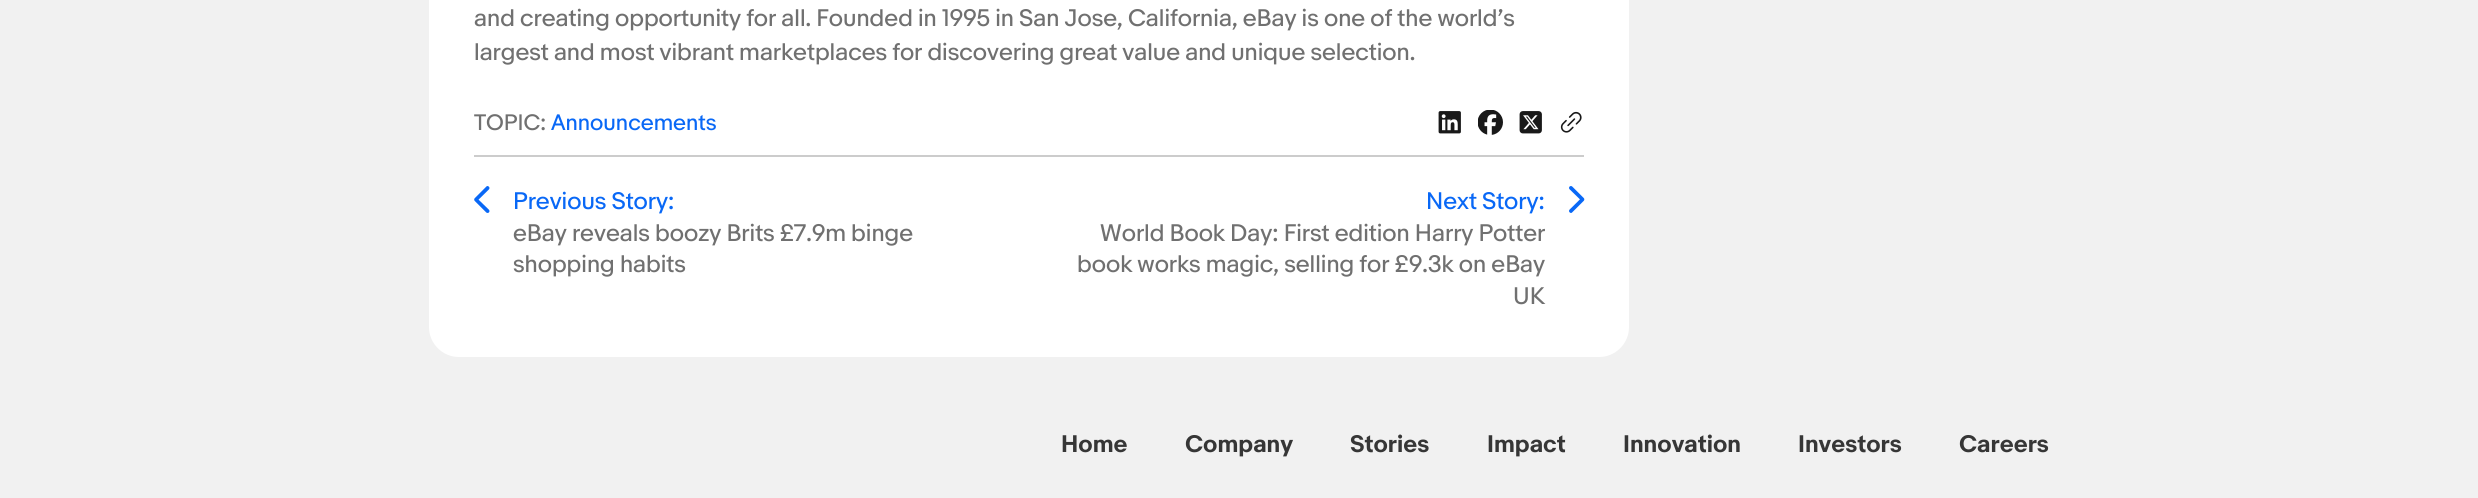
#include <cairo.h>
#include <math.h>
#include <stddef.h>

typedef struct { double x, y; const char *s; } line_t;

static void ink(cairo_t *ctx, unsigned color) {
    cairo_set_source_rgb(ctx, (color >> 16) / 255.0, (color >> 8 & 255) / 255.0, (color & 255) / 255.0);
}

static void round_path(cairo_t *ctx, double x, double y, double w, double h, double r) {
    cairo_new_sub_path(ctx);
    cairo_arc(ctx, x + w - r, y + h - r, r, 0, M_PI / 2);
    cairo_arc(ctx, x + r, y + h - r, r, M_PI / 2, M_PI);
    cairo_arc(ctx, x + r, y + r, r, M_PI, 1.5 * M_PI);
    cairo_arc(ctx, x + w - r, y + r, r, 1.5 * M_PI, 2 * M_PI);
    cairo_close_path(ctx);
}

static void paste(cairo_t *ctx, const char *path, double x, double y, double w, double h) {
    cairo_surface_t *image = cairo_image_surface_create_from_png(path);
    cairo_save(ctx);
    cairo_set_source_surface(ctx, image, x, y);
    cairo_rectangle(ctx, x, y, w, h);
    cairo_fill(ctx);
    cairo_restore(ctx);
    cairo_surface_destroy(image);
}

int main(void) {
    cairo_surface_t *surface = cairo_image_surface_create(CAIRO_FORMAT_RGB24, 2478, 498);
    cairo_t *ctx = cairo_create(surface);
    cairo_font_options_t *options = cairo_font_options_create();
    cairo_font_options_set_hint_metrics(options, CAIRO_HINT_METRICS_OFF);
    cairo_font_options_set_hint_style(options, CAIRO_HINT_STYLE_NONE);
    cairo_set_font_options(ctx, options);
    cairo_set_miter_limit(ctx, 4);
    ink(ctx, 0xF1F1F1);
    cairo_paint(ctx);
    ink(ctx, 0xFFFFFF);
    round_path(ctx, 429, -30, 1200, 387, 30);
    cairo_fill(ctx);
    cairo_select_font_face(ctx, "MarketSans", CAIRO_FONT_SLANT_NORMAL, CAIRO_FONT_WEIGHT_NORMAL);
    cairo_set_font_size(ctx, 22.5);
    ink(ctx, 0x707070);
    cairo_move_to(ctx, 474, 26);
    cairo_show_text(ctx, "and creating opportunity for all. Founded in 1995 in San Jose, California, eBay is one of the world’s");
    cairo_move_to(ctx, 474, 60);
    cairo_show_text(ctx, "largest and most vibrant marketplaces for discovering great value and unique selection.");
    cairo_set_font_size(ctx, 21);
    cairo_move_to(ctx, 474, 130);
    cairo_show_text(ctx, "TOPIC:");
    ink(ctx, 0x0968F6);
    cairo_move_to(ctx, 551, 130);
    cairo_show_text(ctx, "Announcements");
    paste(ctx, "media/1.png", 1438, 111, 23, 23);
    paste(ctx, "media/2.png", 1478, 110, 25, 25);
    paste(ctx, "media/3.png", 1519, 111, 23, 23);
    paste(ctx, "media/4.png", 1560, 111, 22, 22);
    ink(ctx, 0xCCCCCC);
    cairo_rectangle(ctx, 474, 155, 1110, 2);
    cairo_fill(ctx);
    paste(ctx, "media/5.png", 474, 186, 16, 27);
    cairo_set_font_size(ctx, 22.5);
    ink(ctx, 0x0968F6);
    cairo_move_to(ctx, 513, 209);
    cairo_show_text(ctx, "Previous Story:");
    ink(ctx, 0x707070);
    cairo_move_to(ctx, 513, 241);
    cairo_show_text(ctx, "eBay reveals boozy Brits £7.9m binge");
    cairo_move_to(ctx, 513, 272);
    cairo_show_text(ctx, "shopping habits");
    ink(ctx, 0x0968F6);
    cairo_move_to(ctx, 1426, 209);
    cairo_show_text(ctx, "Next Story:");
    paste(ctx, "media/6.png", 1569, 186, 16, 27);
    ink(ctx, 0x707070);
    {
        static const line_t items[] = {
            {1100, 241, "World Book Day: First edition Harry Potter"},
            {1077, 272, "book works magic, selling for £9.3k on eBay"},
            {1513, 304, "UK"},
        };
        for (size_t i = 0; i < sizeof items / sizeof *items; i++) {
            cairo_move_to(ctx, items[i].x, items[i].y);
            cairo_show_text(ctx, items[i].s);
        }
    }
    cairo_select_font_face(ctx, "MarketSans", CAIRO_FONT_SLANT_NORMAL, CAIRO_FONT_WEIGHT_BOLD);
    ink(ctx, 0x363636);
    {
        static const line_t items[] = {
            {1061, 452, "Home"},
            {1185, 452, "Company"},
            {1350, 452, "Stories"},
            {1487, 452, "Impact"},
            {1623, 452, "Innovation"},
            {1798, 452, "Investors"},
            {1959, 452, "Careers"},
        };
        for (size_t i = 0; i < sizeof items / sizeof *items; i++) {
            cairo_move_to(ctx, items[i].x, items[i].y);
            cairo_show_text(ctx, items[i].s);
        }
    }
    cairo_surface_write_to_png(surface, "image.png");
    cairo_font_options_destroy(options);
    cairo_destroy(ctx);
    cairo_surface_destroy(surface);
    return 0;
}
